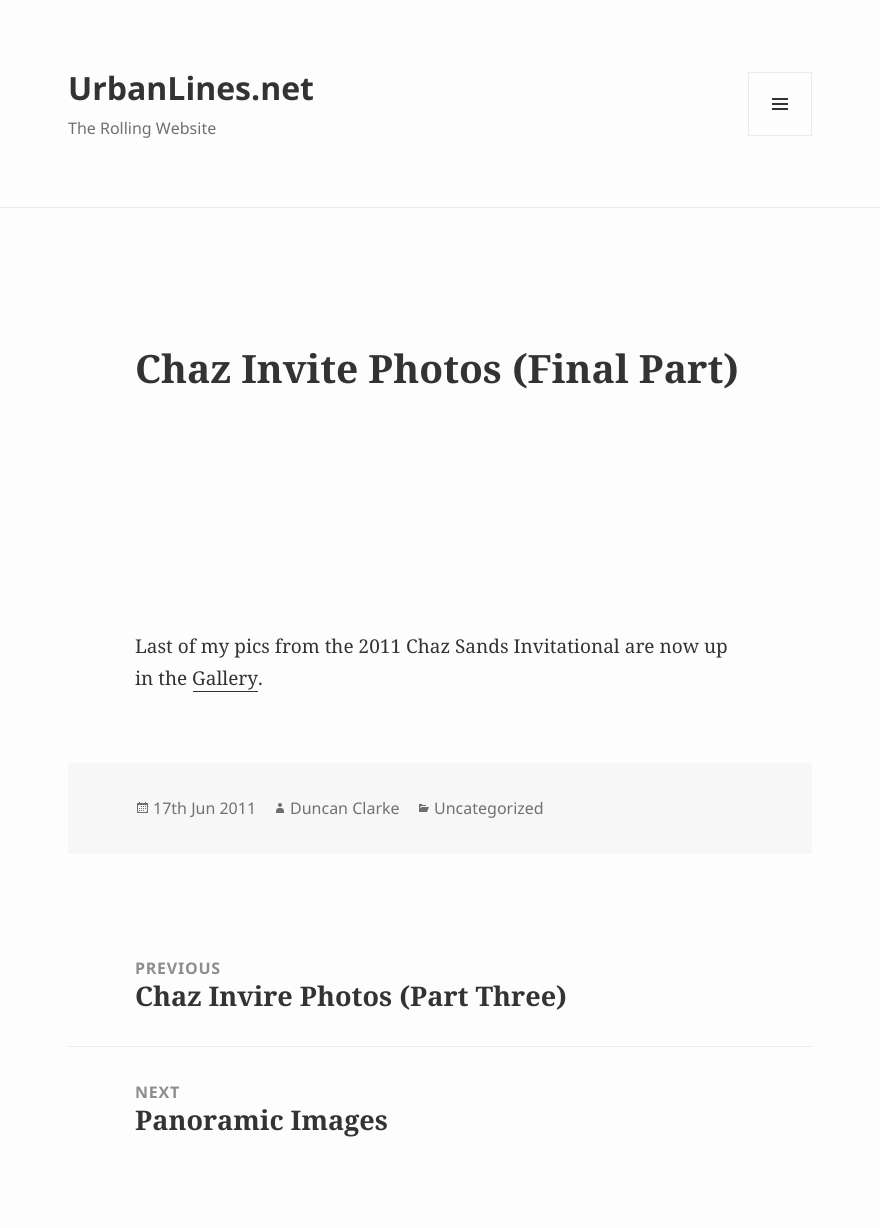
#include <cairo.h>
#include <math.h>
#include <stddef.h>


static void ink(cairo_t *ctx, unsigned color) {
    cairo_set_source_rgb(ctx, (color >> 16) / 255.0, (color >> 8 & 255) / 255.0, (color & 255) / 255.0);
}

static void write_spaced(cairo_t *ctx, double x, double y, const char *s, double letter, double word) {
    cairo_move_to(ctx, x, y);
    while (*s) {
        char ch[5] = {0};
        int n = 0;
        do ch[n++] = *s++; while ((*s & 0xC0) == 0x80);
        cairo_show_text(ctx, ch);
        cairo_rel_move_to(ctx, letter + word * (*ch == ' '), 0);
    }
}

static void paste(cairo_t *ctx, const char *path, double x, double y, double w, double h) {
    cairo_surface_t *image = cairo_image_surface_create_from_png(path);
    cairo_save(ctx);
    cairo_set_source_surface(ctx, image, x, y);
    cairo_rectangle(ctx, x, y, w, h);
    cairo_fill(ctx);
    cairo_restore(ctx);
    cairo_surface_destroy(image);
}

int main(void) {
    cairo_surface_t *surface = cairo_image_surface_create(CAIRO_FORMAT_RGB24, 880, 1228);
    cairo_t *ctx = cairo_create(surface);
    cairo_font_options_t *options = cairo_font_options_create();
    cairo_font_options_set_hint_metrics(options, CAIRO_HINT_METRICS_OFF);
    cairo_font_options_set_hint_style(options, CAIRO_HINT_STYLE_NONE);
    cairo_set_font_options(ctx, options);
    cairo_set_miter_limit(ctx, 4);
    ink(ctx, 0xFDFDFD);
    cairo_paint(ctx);
    ink(ctx, 0xEBEBEB);
    cairo_rectangle(ctx, 0, 207, 880, 1);
    cairo_fill(ctx);
    cairo_select_font_face(ctx, "Noto Sans", CAIRO_FONT_SLANT_NORMAL, CAIRO_FONT_WEIGHT_BOLD);
    cairo_set_font_size(ctx, 32);
    ink(ctx, 0x333333);
    cairo_move_to(ctx, 68, 100);
    cairo_show_text(ctx, "UrbanLines.net");
    cairo_rectangle(ctx, 748.5, 72.5, 63, 63);
    ink(ctx, 0xEBEBEB);
    cairo_set_line_width(ctx, 1);
    cairo_stroke(ctx);
    paste(ctx, "media/1.png", 772, 98, 16, 12);
    cairo_select_font_face(ctx, "Noto Sans", CAIRO_FONT_SLANT_NORMAL, CAIRO_FONT_WEIGHT_NORMAL);
    cairo_set_font_size(ctx, 16);
    ink(ctx, 0x707070);
    cairo_move_to(ctx, 68, 134);
    cairo_show_text(ctx, "The Rolling Website");
    cairo_select_font_face(ctx, "Noto Serif", CAIRO_FONT_SLANT_NORMAL, CAIRO_FONT_WEIGHT_BOLD);
    cairo_set_font_size(ctx, 39);
    ink(ctx, 0x333333);
    cairo_move_to(ctx, 135, 383);
    cairo_show_text(ctx, "Chaz Invite Photos (Final Part)");
    cairo_select_font_face(ctx, "Noto Serif", CAIRO_FONT_SLANT_NORMAL, CAIRO_FONT_WEIGHT_NORMAL);
    cairo_set_font_size(ctx, 19);
    cairo_move_to(ctx, 135, 653);
    cairo_show_text(ctx, "Last of my pics from the 2011 Chaz Sands Invitational are now up");
    cairo_move_to(ctx, 135, 685);
    cairo_show_text(ctx, "in the Gallery.");
    cairo_rectangle(ctx, 193, 691, 65, 1);
    cairo_fill(ctx);
    ink(ctx, 0xF7F7F7);
    cairo_rectangle(ctx, 68, 763, 744, 91);
    cairo_fill(ctx);
    paste(ctx, "media/2.png", 137, 802, 11, 11);
    cairo_select_font_face(ctx, "Noto Sans", CAIRO_FONT_SLANT_NORMAL, CAIRO_FONT_WEIGHT_NORMAL);
    cairo_set_font_size(ctx, 16);
    ink(ctx, 0x707070);
    cairo_move_to(ctx, 153, 814);
    cairo_show_text(ctx, "17th Jun 2011");
    paste(ctx, "media/3.png", 276, 803, 8, 10);
    cairo_move_to(ctx, 290, 814);
    cairo_show_text(ctx, "Duncan Clarke");
    paste(ctx, "media/4.png", 419, 804, 10, 8);
    cairo_move_to(ctx, 434, 814);
    cairo_show_text(ctx, "Uncategorized");
    cairo_select_font_face(ctx, "Noto Sans", CAIRO_FONT_SLANT_NORMAL, CAIRO_FONT_WEIGHT_BOLD);
    ink(ctx, 0x8D8D8D);
    write_spaced(ctx, 135, 974, "PREVIOUS", 0.75, 0);
    cairo_select_font_face(ctx, "Noto Serif", CAIRO_FONT_SLANT_NORMAL, CAIRO_FONT_WEIGHT_BOLD);
    cairo_set_font_size(ctx, 27);
    ink(ctx, 0x333333);
    cairo_move_to(ctx, 135, 1006);
    cairo_show_text(ctx, "Chaz Invire Photos (Part Three)");
    ink(ctx, 0xEBEBEB);
    cairo_rectangle(ctx, 68, 1046, 744, 1);
    cairo_fill(ctx);
    cairo_select_font_face(ctx, "Noto Sans", CAIRO_FONT_SLANT_NORMAL, CAIRO_FONT_WEIGHT_BOLD);
    cairo_set_font_size(ctx, 16);
    ink(ctx, 0x8D8D8D);
    write_spaced(ctx, 135, 1098, "NEXT", 0.75, 0);
    cairo_select_font_face(ctx, "Noto Serif", CAIRO_FONT_SLANT_NORMAL, CAIRO_FONT_WEIGHT_BOLD);
    cairo_set_font_size(ctx, 27);
    ink(ctx, 0x333333);
    cairo_move_to(ctx, 135, 1130);
    cairo_show_text(ctx, "Panoramic Images");
    cairo_surface_write_to_png(surface, "image.png");
    cairo_font_options_destroy(options);
    cairo_destroy(ctx);
    cairo_surface_destroy(surface);
    return 0;
}
